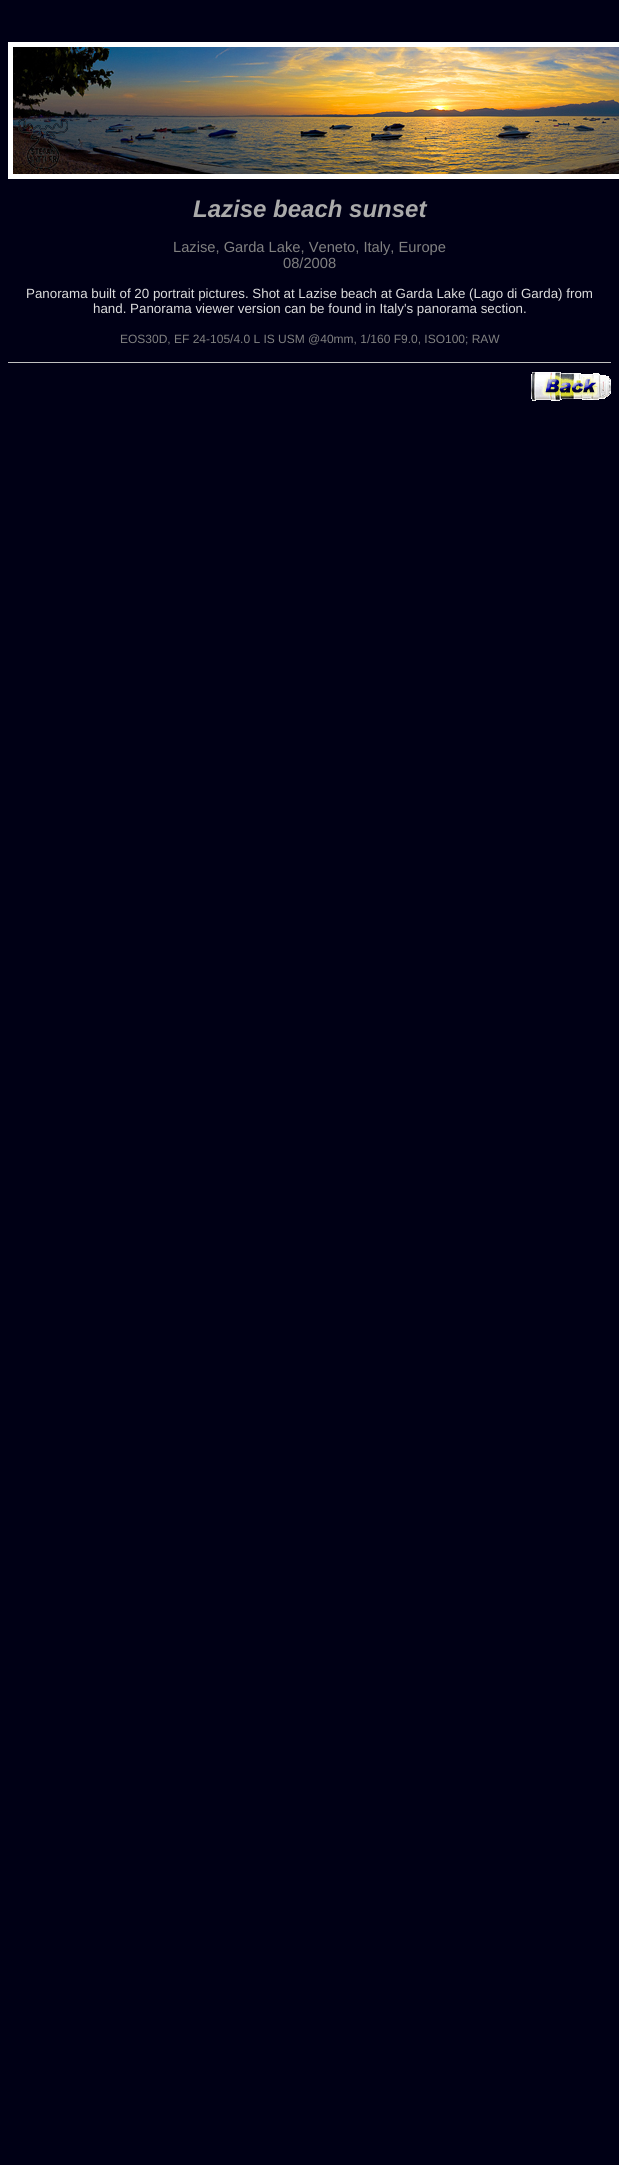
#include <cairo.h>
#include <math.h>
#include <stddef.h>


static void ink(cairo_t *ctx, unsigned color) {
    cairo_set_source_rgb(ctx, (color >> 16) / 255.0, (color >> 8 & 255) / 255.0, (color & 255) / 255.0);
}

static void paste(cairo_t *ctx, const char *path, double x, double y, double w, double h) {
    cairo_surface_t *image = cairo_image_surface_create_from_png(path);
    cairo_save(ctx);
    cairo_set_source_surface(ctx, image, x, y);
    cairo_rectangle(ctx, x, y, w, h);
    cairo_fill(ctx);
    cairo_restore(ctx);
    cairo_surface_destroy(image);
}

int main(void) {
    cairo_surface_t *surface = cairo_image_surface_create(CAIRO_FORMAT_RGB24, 619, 2165);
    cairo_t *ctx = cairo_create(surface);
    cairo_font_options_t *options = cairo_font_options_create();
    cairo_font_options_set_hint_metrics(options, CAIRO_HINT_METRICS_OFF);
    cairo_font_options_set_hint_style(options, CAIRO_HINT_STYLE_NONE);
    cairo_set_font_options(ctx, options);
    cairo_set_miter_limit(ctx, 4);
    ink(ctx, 0x000015);
    cairo_paint(ctx);
    cairo_rectangle(ctx, 10.5, 44.5, 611, 132);
    ink(ctx, 0xFFFFFF);
    cairo_set_line_width(ctx, 5);
    cairo_stroke(ctx);
    paste(ctx, "media/1.png", 13, 47, 606, 127);
    cairo_select_font_face(ctx, "Liberation Sans", CAIRO_FONT_SLANT_ITALIC, CAIRO_FONT_WEIGHT_BOLD);
    cairo_set_font_size(ctx, 24);
    ink(ctx, 0xAAAAAA);
    cairo_move_to(ctx, 193, 217);
    cairo_show_text(ctx, "Lazise beach sunset");
    cairo_select_font_face(ctx, "Liberation Sans", CAIRO_FONT_SLANT_NORMAL, CAIRO_FONT_WEIGHT_NORMAL);
    cairo_set_font_size(ctx, 14.7);
    ink(ctx, 0x808080);
    cairo_move_to(ctx, 173, 252);
    cairo_show_text(ctx, "Lazise, Garda Lake, Veneto, Italy, Europe");
    cairo_move_to(ctx, 283, 268);
    cairo_show_text(ctx, "08/2008");
    cairo_set_font_size(ctx, 13.35);
    ink(ctx, 0xDDDDDD);
    cairo_move_to(ctx, 26, 298);
    cairo_show_text(ctx, "Panorama built of 20 portrait pictures. Shot at Lazise beach at Garda Lake (Lago di Garda) from");
    cairo_move_to(ctx, 93, 313);
    cairo_show_text(ctx, "hand. Panorama viewer version can be found in Italy's panorama section.");
    cairo_set_font_size(ctx, 12);
    ink(ctx, 0x808080);
    cairo_move_to(ctx, 120, 343);
    cairo_show_text(ctx, "EOS30D, EF 24-105/4.0 L IS USM @40mm, 1/160 F9.0, ISO100; RAW");
    ink(ctx, 0xC0C0C0);
    cairo_rectangle(ctx, 8, 362, 603, 1);
    cairo_fill(ctx);
    paste(ctx, "media/2.png", 531, 372, 80, 29);
    cairo_surface_write_to_png(surface, "image.png");
    cairo_font_options_destroy(options);
    cairo_destroy(ctx);
    cairo_surface_destroy(surface);
    return 0;
}
